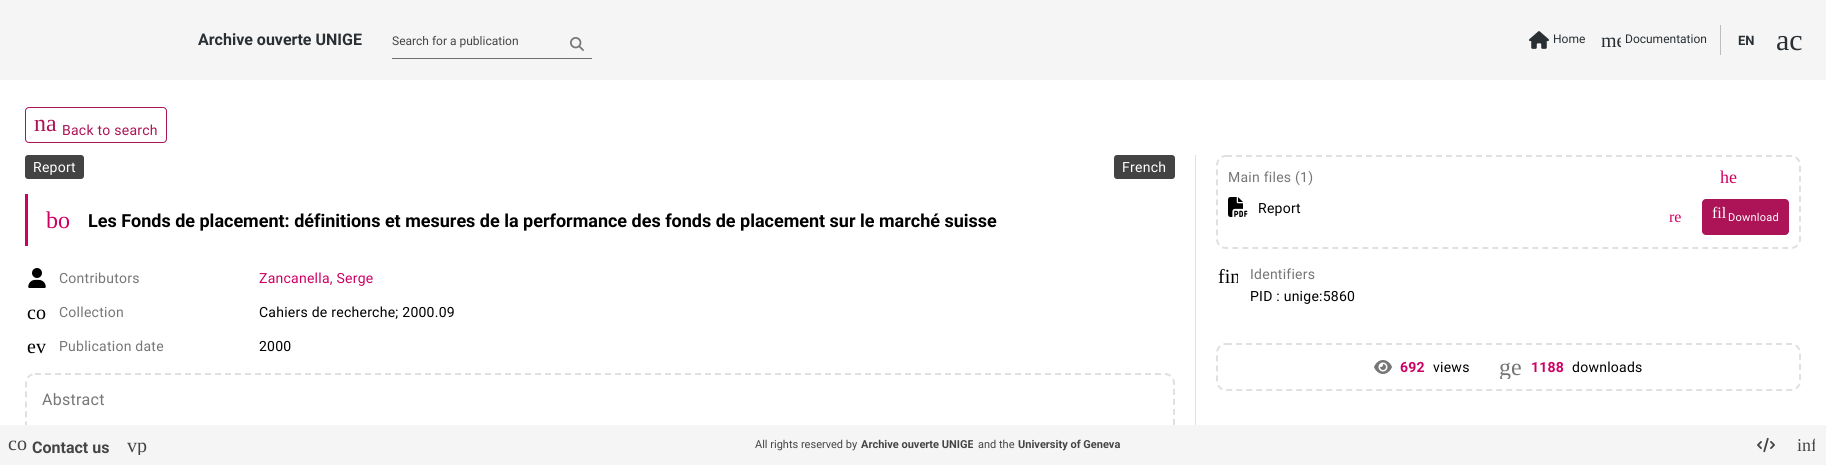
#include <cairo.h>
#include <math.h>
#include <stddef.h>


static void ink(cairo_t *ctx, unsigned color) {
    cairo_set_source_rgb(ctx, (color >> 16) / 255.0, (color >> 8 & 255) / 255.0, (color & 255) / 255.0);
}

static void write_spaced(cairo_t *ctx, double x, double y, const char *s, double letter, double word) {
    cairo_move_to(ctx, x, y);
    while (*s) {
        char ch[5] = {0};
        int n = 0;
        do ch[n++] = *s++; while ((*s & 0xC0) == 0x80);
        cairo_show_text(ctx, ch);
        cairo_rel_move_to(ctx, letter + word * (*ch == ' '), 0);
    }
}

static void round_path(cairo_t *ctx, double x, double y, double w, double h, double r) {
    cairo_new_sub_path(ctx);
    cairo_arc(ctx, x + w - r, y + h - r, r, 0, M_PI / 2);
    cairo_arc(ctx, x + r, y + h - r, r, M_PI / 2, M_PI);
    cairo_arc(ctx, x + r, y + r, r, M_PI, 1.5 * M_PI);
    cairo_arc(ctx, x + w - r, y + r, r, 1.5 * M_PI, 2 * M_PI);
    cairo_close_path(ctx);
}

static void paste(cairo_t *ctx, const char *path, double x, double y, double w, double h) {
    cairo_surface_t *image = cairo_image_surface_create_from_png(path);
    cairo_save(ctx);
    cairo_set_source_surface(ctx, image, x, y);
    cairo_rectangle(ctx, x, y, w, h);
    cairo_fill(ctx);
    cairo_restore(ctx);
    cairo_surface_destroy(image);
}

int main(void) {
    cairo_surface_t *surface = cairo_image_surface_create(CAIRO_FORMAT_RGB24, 1826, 465);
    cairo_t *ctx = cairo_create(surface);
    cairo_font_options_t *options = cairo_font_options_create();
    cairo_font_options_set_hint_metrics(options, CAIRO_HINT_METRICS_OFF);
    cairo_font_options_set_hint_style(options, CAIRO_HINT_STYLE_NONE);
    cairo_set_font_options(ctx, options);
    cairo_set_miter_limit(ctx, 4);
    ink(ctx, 0xFFFFFF);
    cairo_paint(ctx);
    ink(ctx, 0xF5F5F5);
    cairo_rectangle(ctx, 0, 0, 1826, 80);
    cairo_fill(ctx);
    cairo_select_font_face(ctx, "Roboto", CAIRO_FONT_SLANT_NORMAL, CAIRO_FONT_WEIGHT_BOLD);
    cairo_set_font_size(ctx, 16);
    ink(ctx, 0x292F33);
    cairo_move_to(ctx, 198, 45);
    cairo_show_text(ctx, "Archive ouverte UNIGE");
    cairo_select_font_face(ctx, "Roboto", CAIRO_FONT_SLANT_NORMAL, CAIRO_FONT_WEIGHT_NORMAL);
    cairo_set_font_size(ctx, 12);
    ink(ctx, 0x454545);
    cairo_move_to(ctx, 392, 45);
    cairo_show_text(ctx, "Search for a publication");
    paste(ctx, "media/1.png", 570, 37, 14, 14);
    ink(ctx, 0x717171);
    cairo_rectangle(ctx, 392, 58, 200, 1);
    cairo_fill(ctx);
    paste(ctx, "media/2.png", 1529, 31, 20, 18);
    ink(ctx, 0x292F33);
    cairo_move_to(ctx, 1553, 43);
    cairo_show_text(ctx, "Home");
    cairo_save(ctx);
    cairo_rectangle(ctx, 1601, 30, 20, 20);
    cairo_clip(ctx);
    cairo_select_font_face(ctx, "Liberation Serif", CAIRO_FONT_SLANT_NORMAL, CAIRO_FONT_WEIGHT_NORMAL);
    cairo_set_font_size(ctx, 20);
    cairo_move_to(ctx, 1601, 47);
    cairo_show_text(ctx, "me");
    cairo_restore(ctx);
    cairo_move_to(ctx, 1625, 43);
    cairo_show_text(ctx, "Documentation");
    ink(ctx, 0xBDBDBD);
    cairo_rectangle(ctx, 1720, 25, 1, 30);
    cairo_fill(ctx);
    cairo_select_font_face(ctx, "Roboto", CAIRO_FONT_SLANT_NORMAL, CAIRO_FONT_WEIGHT_BOLD);
    cairo_set_font_size(ctx, 13);
    ink(ctx, 0x292F33);
    cairo_move_to(ctx, 1738, 45);
    cairo_show_text(ctx, "EN");
    cairo_select_font_face(ctx, "Liberation Serif", CAIRO_FONT_SLANT_NORMAL, CAIRO_FONT_WEIGHT_NORMAL);
    cairo_set_font_size(ctx, 30);
    cairo_move_to(ctx, 1776, 50);
    cairo_show_text(ctx, "ac");
    round_path(ctx, 25.5, 107.5, 141, 35, 3.5);
    ink(ctx, 0xAD1457);
    cairo_set_line_width(ctx, 1);
    cairo_stroke(ctx);
    cairo_set_font_size(ctx, 24);
    cairo_move_to(ctx, 34, 131);
    cairo_show_text(ctx, "na");
    cairo_select_font_face(ctx, "Roboto", CAIRO_FONT_SLANT_NORMAL, CAIRO_FONT_WEIGHT_NORMAL);
    cairo_set_font_size(ctx, 14);
    write_spaced(ctx, 62, 135, "Back to search", 0.25, 0);
    ink(ctx, 0xE0E0E0);
    cairo_rectangle(ctx, 1195, 155, 1, 270);
    cairo_fill(ctx);
    ink(ctx, 0x434343);
    round_path(ctx, 25, 155, 59, 24, 3);
    cairo_fill(ctx);
    ink(ctx, 0xFFFFFF);
    write_spaced(ctx, 33, 172, "Report", 0.25, 0);
    ink(ctx, 0x434343);
    round_path(ctx, 1114, 155, 61, 24, 3);
    cairo_fill(ctx);
    ink(ctx, 0xFFFFFF);
    write_spaced(ctx, 1122, 172, "French", 0.25, 0);
    ink(ctx, 0xCF0063);
    cairo_rectangle(ctx, 25, 194, 3, 52);
    cairo_fill(ctx);
    cairo_select_font_face(ctx, "Liberation Serif", CAIRO_FONT_SLANT_NORMAL, CAIRO_FONT_WEIGHT_NORMAL);
    cairo_set_font_size(ctx, 24);
    cairo_move_to(ctx, 46, 228);
    cairo_show_text(ctx, "bo");
    cairo_select_font_face(ctx, "Roboto", CAIRO_FONT_SLANT_NORMAL, CAIRO_FONT_WEIGHT_BOLD);
    cairo_set_font_size(ctx, 18);
    ink(ctx, 0x000000);
    cairo_move_to(ctx, 88, 227);
    cairo_show_text(ctx, "Les Fonds de placement: définitions et mesures de la performance des fonds de placement sur le marché suisse");
    paste(ctx, "media/3.png", 28, 268, 18, 20);
    cairo_select_font_face(ctx, "Roboto", CAIRO_FONT_SLANT_NORMAL, CAIRO_FONT_WEIGHT_NORMAL);
    cairo_set_font_size(ctx, 14);
    ink(ctx, 0x767676);
    write_spaced(ctx, 59, 283, "Contributors", 0.25, 0);
    ink(ctx, 0xCF0063);
    write_spaced(ctx, 259, 283, "Zancanella, Serge", 0.25, 0);
    cairo_select_font_face(ctx, "Liberation Serif", CAIRO_FONT_SLANT_NORMAL, CAIRO_FONT_WEIGHT_NORMAL);
    cairo_set_font_size(ctx, 20);
    ink(ctx, 0x000000);
    cairo_move_to(ctx, 27, 319);
    cairo_show_text(ctx, "co");
    cairo_select_font_face(ctx, "Roboto", CAIRO_FONT_SLANT_NORMAL, CAIRO_FONT_WEIGHT_NORMAL);
    cairo_set_font_size(ctx, 14);
    ink(ctx, 0x767676);
    write_spaced(ctx, 59, 317, "Collection", 0.25, 0);
    ink(ctx, 0x000000);
    write_spaced(ctx, 259, 317, "Cahiers de recherche; 2000.09", 0.25, 0);
    cairo_select_font_face(ctx, "Liberation Serif", CAIRO_FONT_SLANT_NORMAL, CAIRO_FONT_WEIGHT_NORMAL);
    cairo_set_font_size(ctx, 20);
    cairo_move_to(ctx, 27, 353);
    cairo_show_text(ctx, "ev");
    cairo_select_font_face(ctx, "Roboto", CAIRO_FONT_SLANT_NORMAL, CAIRO_FONT_WEIGHT_NORMAL);
    cairo_set_font_size(ctx, 14);
    ink(ctx, 0x767676);
    write_spaced(ctx, 59, 351, "Publication date", 0.25, 0);
    ink(ctx, 0x000000);
    write_spaced(ctx, 259, 351, "2000", 0.25, 0);
    cairo_new_path(ctx);
    cairo_move_to(ctx, 35, 374);
    cairo_line_to(ctx, 1165, 374);
    cairo_curve_to(ctx, 1170, 374, 1174, 378, 1174, 383);
    cairo_line_to(ctx, 1174, 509);
    cairo_curve_to(ctx, 1174, 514, 1170, 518, 1165, 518);
    cairo_line_to(ctx, 35, 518);
    cairo_curve_to(ctx, 30, 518, 26, 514, 26, 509);
    cairo_line_to(ctx, 26, 383);
    cairo_curve_to(ctx, 26, 378, 30, 374, 35, 374);
    cairo_close_path(ctx);
    ink(ctx, 0xE0E0E0);
    cairo_set_line_width(ctx, 2);
    cairo_set_dash(ctx, (double[]){6, 4}, 2, 0);
    cairo_stroke(ctx);
    cairo_set_font_size(ctx, 16);
    ink(ctx, 0x767676);
    write_spaced(ctx, 42, 405, "Abstract", 0.25, 0);
    cairo_new_path(ctx);
    cairo_move_to(ctx, 1226, 156);
    cairo_line_to(ctx, 1791, 156);
    cairo_curve_to(ctx, 1796, 156, 1800, 160, 1800, 165);
    cairo_line_to(ctx, 1800, 239);
    cairo_curve_to(ctx, 1800, 244, 1796, 248, 1791, 248);
    cairo_line_to(ctx, 1226, 248);
    cairo_curve_to(ctx, 1221, 248, 1217, 244, 1217, 239);
    cairo_line_to(ctx, 1217, 165);
    cairo_curve_to(ctx, 1217, 160, 1221, 156, 1226, 156);
    cairo_close_path(ctx);
    ink(ctx, 0xE0E0E0);
    cairo_stroke(ctx);
    cairo_set_font_size(ctx, 14);
    ink(ctx, 0x767676);
    write_spaced(ctx, 1228, 182, "Main files (1)", 0.25, 0);
    cairo_select_font_face(ctx, "Liberation Serif", CAIRO_FONT_SLANT_NORMAL, CAIRO_FONT_WEIGHT_NORMAL);
    cairo_set_font_size(ctx, 18);
    ink(ctx, 0xCF0063);
    cairo_move_to(ctx, 1720, 183);
    cairo_show_text(ctx, "he");
    paste(ctx, "media/4.png", 1228, 197, 20, 20);
    cairo_select_font_face(ctx, "Roboto", CAIRO_FONT_SLANT_NORMAL, CAIRO_FONT_WEIGHT_NORMAL);
    cairo_set_font_size(ctx, 14);
    ink(ctx, 0x000000);
    write_spaced(ctx, 1258, 213, "Report", 0.25, 0);
    cairo_select_font_face(ctx, "Liberation Serif", CAIRO_FONT_SLANT_NORMAL, CAIRO_FONT_WEIGHT_NORMAL);
    cairo_set_font_size(ctx, 16);
    ink(ctx, 0xCF0063);
    cairo_move_to(ctx, 1669, 222);
    cairo_show_text(ctx, "re");
    ink(ctx, 0xAD1457);
    round_path(ctx, 1702, 199, 87, 36, 4);
    cairo_fill(ctx);
    ink(ctx, 0xFFFFFF);
    cairo_move_to(ctx, 1712, 218);
    cairo_show_text(ctx, "fil");
    cairo_select_font_face(ctx, "Roboto", CAIRO_FONT_SLANT_NORMAL, CAIRO_FONT_WEIGHT_NORMAL);
    cairo_set_font_size(ctx, 11);
    write_spaced(ctx, 1728, 221, "Download", 0.25, 0);
    cairo_save(ctx);
    cairo_rectangle(ctx, 1218, 266, 20, 20);
    cairo_clip(ctx);
    cairo_select_font_face(ctx, "Liberation Serif", CAIRO_FONT_SLANT_NORMAL, CAIRO_FONT_WEIGHT_NORMAL);
    cairo_set_font_size(ctx, 20);
    ink(ctx, 0x000000);
    cairo_move_to(ctx, 1218, 283);
    cairo_show_text(ctx, "fin");
    cairo_restore(ctx);
    cairo_set_font_size(ctx, 14);
    ink(ctx, 0x767676);
    write_spaced(ctx, 1250, 279, "Identifiers", 0.25, 0);
    ink(ctx, 0x000000);
    write_spaced(ctx, 1250, 301, "PID : unige:5860", 0.25, 0);
    cairo_new_path(ctx);
    cairo_move_to(ctx, 1226, 344);
    cairo_line_to(ctx, 1791, 344);
    cairo_curve_to(ctx, 1796, 344, 1800, 348, 1800, 353);
    cairo_line_to(ctx, 1800, 381);
    cairo_curve_to(ctx, 1800, 386, 1796, 390, 1791, 390);
    cairo_line_to(ctx, 1226, 390);
    cairo_curve_to(ctx, 1221, 390, 1217, 386, 1217, 381);
    cairo_line_to(ctx, 1217, 353);
    cairo_curve_to(ctx, 1217, 348, 1221, 344, 1226, 344);
    cairo_close_path(ctx);
    ink(ctx, 0xE0E0E0);
    cairo_stroke(ctx);
    paste(ctx, "media/5.png", 1374, 360, 18, 14);
    cairo_select_font_face(ctx, "Roboto", CAIRO_FONT_SLANT_NORMAL, CAIRO_FONT_WEIGHT_BOLD);
    ink(ctx, 0xCF0063);
    write_spaced(ctx, 1400, 372, "692", 0.25, 0);
    cairo_select_font_face(ctx, "Roboto", CAIRO_FONT_SLANT_NORMAL, CAIRO_FONT_WEIGHT_NORMAL);
    ink(ctx, 0x000000);
    write_spaced(ctx, 1433, 372, "views", 0.25, 0);
    cairo_save(ctx);
    cairo_rectangle(ctx, 1499, 355, 24, 24);
    cairo_clip(ctx);
    cairo_select_font_face(ctx, "Liberation Serif", CAIRO_FONT_SLANT_NORMAL, CAIRO_FONT_WEIGHT_NORMAL);
    cairo_set_font_size(ctx, 24);
    ink(ctx, 0x767676);
    cairo_move_to(ctx, 1499, 375);
    cairo_show_text(ctx, "ge");
    cairo_restore(ctx);
    cairo_select_font_face(ctx, "Roboto", CAIRO_FONT_SLANT_NORMAL, CAIRO_FONT_WEIGHT_BOLD);
    ink(ctx, 0xCF0063);
    write_spaced(ctx, 1531, 372, "1188", 0.25, 0);
    cairo_select_font_face(ctx, "Roboto", CAIRO_FONT_SLANT_NORMAL, CAIRO_FONT_WEIGHT_NORMAL);
    ink(ctx, 0x000000);
    write_spaced(ctx, 1572, 372, "downloads", 0.25, 0);
    ink(ctx, 0xF5F5F5);
    cairo_rectangle(ctx, 0, 425, 1826, 40);
    cairo_fill(ctx);
    cairo_select_font_face(ctx, "Liberation Serif", CAIRO_FONT_SLANT_NORMAL, CAIRO_FONT_WEIGHT_NORMAL);
    cairo_set_font_size(ctx, 20);
    ink(ctx, 0x454545);
    cairo_move_to(ctx, 8, 450);
    cairo_show_text(ctx, "co");
    cairo_select_font_face(ctx, "Roboto", CAIRO_FONT_SLANT_NORMAL, CAIRO_FONT_WEIGHT_BOLD);
    cairo_set_font_size(ctx, 16);
    cairo_move_to(ctx, 32, 453);
    cairo_show_text(ctx, "Contact us");
    cairo_save(ctx);
    cairo_rectangle(ctx, 127, 435, 20, 20);
    cairo_clip(ctx);
    cairo_select_font_face(ctx, "Liberation Serif", CAIRO_FONT_SLANT_NORMAL, CAIRO_FONT_WEIGHT_NORMAL);
    cairo_set_font_size(ctx, 20);
    cairo_move_to(ctx, 127, 452);
    cairo_show_text(ctx, "vp");
    cairo_restore(ctx);
    cairo_select_font_face(ctx, "Roboto", CAIRO_FONT_SLANT_NORMAL, CAIRO_FONT_WEIGHT_NORMAL);
    cairo_set_font_size(ctx, 11);
    cairo_move_to(ctx, 755, 448);
    cairo_show_text(ctx, "All rights reserved by");
    cairo_select_font_face(ctx, "Roboto", CAIRO_FONT_SLANT_NORMAL, CAIRO_FONT_WEIGHT_BOLD);
    cairo_move_to(ctx, 861, 448);
    cairo_show_text(ctx, "Archive ouverte UNIGE");
    cairo_select_font_face(ctx, "Roboto", CAIRO_FONT_SLANT_NORMAL, CAIRO_FONT_WEIGHT_NORMAL);
    cairo_move_to(ctx, 978, 448);
    cairo_show_text(ctx, "and the");
    cairo_select_font_face(ctx, "Roboto", CAIRO_FONT_SLANT_NORMAL, CAIRO_FONT_WEIGHT_BOLD);
    cairo_move_to(ctx, 1018, 448);
    cairo_show_text(ctx, "University of Geneva");
    paste(ctx, "media/6.png", 1757, 437, 18, 16);
    cairo_save(ctx);
    cairo_rectangle(ctx, 1797, 436, 18, 18);
    cairo_clip(ctx);
    cairo_select_font_face(ctx, "Liberation Serif", CAIRO_FONT_SLANT_NORMAL, CAIRO_FONT_WEIGHT_NORMAL);
    cairo_set_font_size(ctx, 18);
    cairo_move_to(ctx, 1797, 451);
    cairo_show_text(ctx, "inf");
    cairo_restore(ctx);
    cairo_surface_write_to_png(surface, "image.png");
    cairo_font_options_destroy(options);
    cairo_destroy(ctx);
    cairo_surface_destroy(surface);
    return 0;
}
